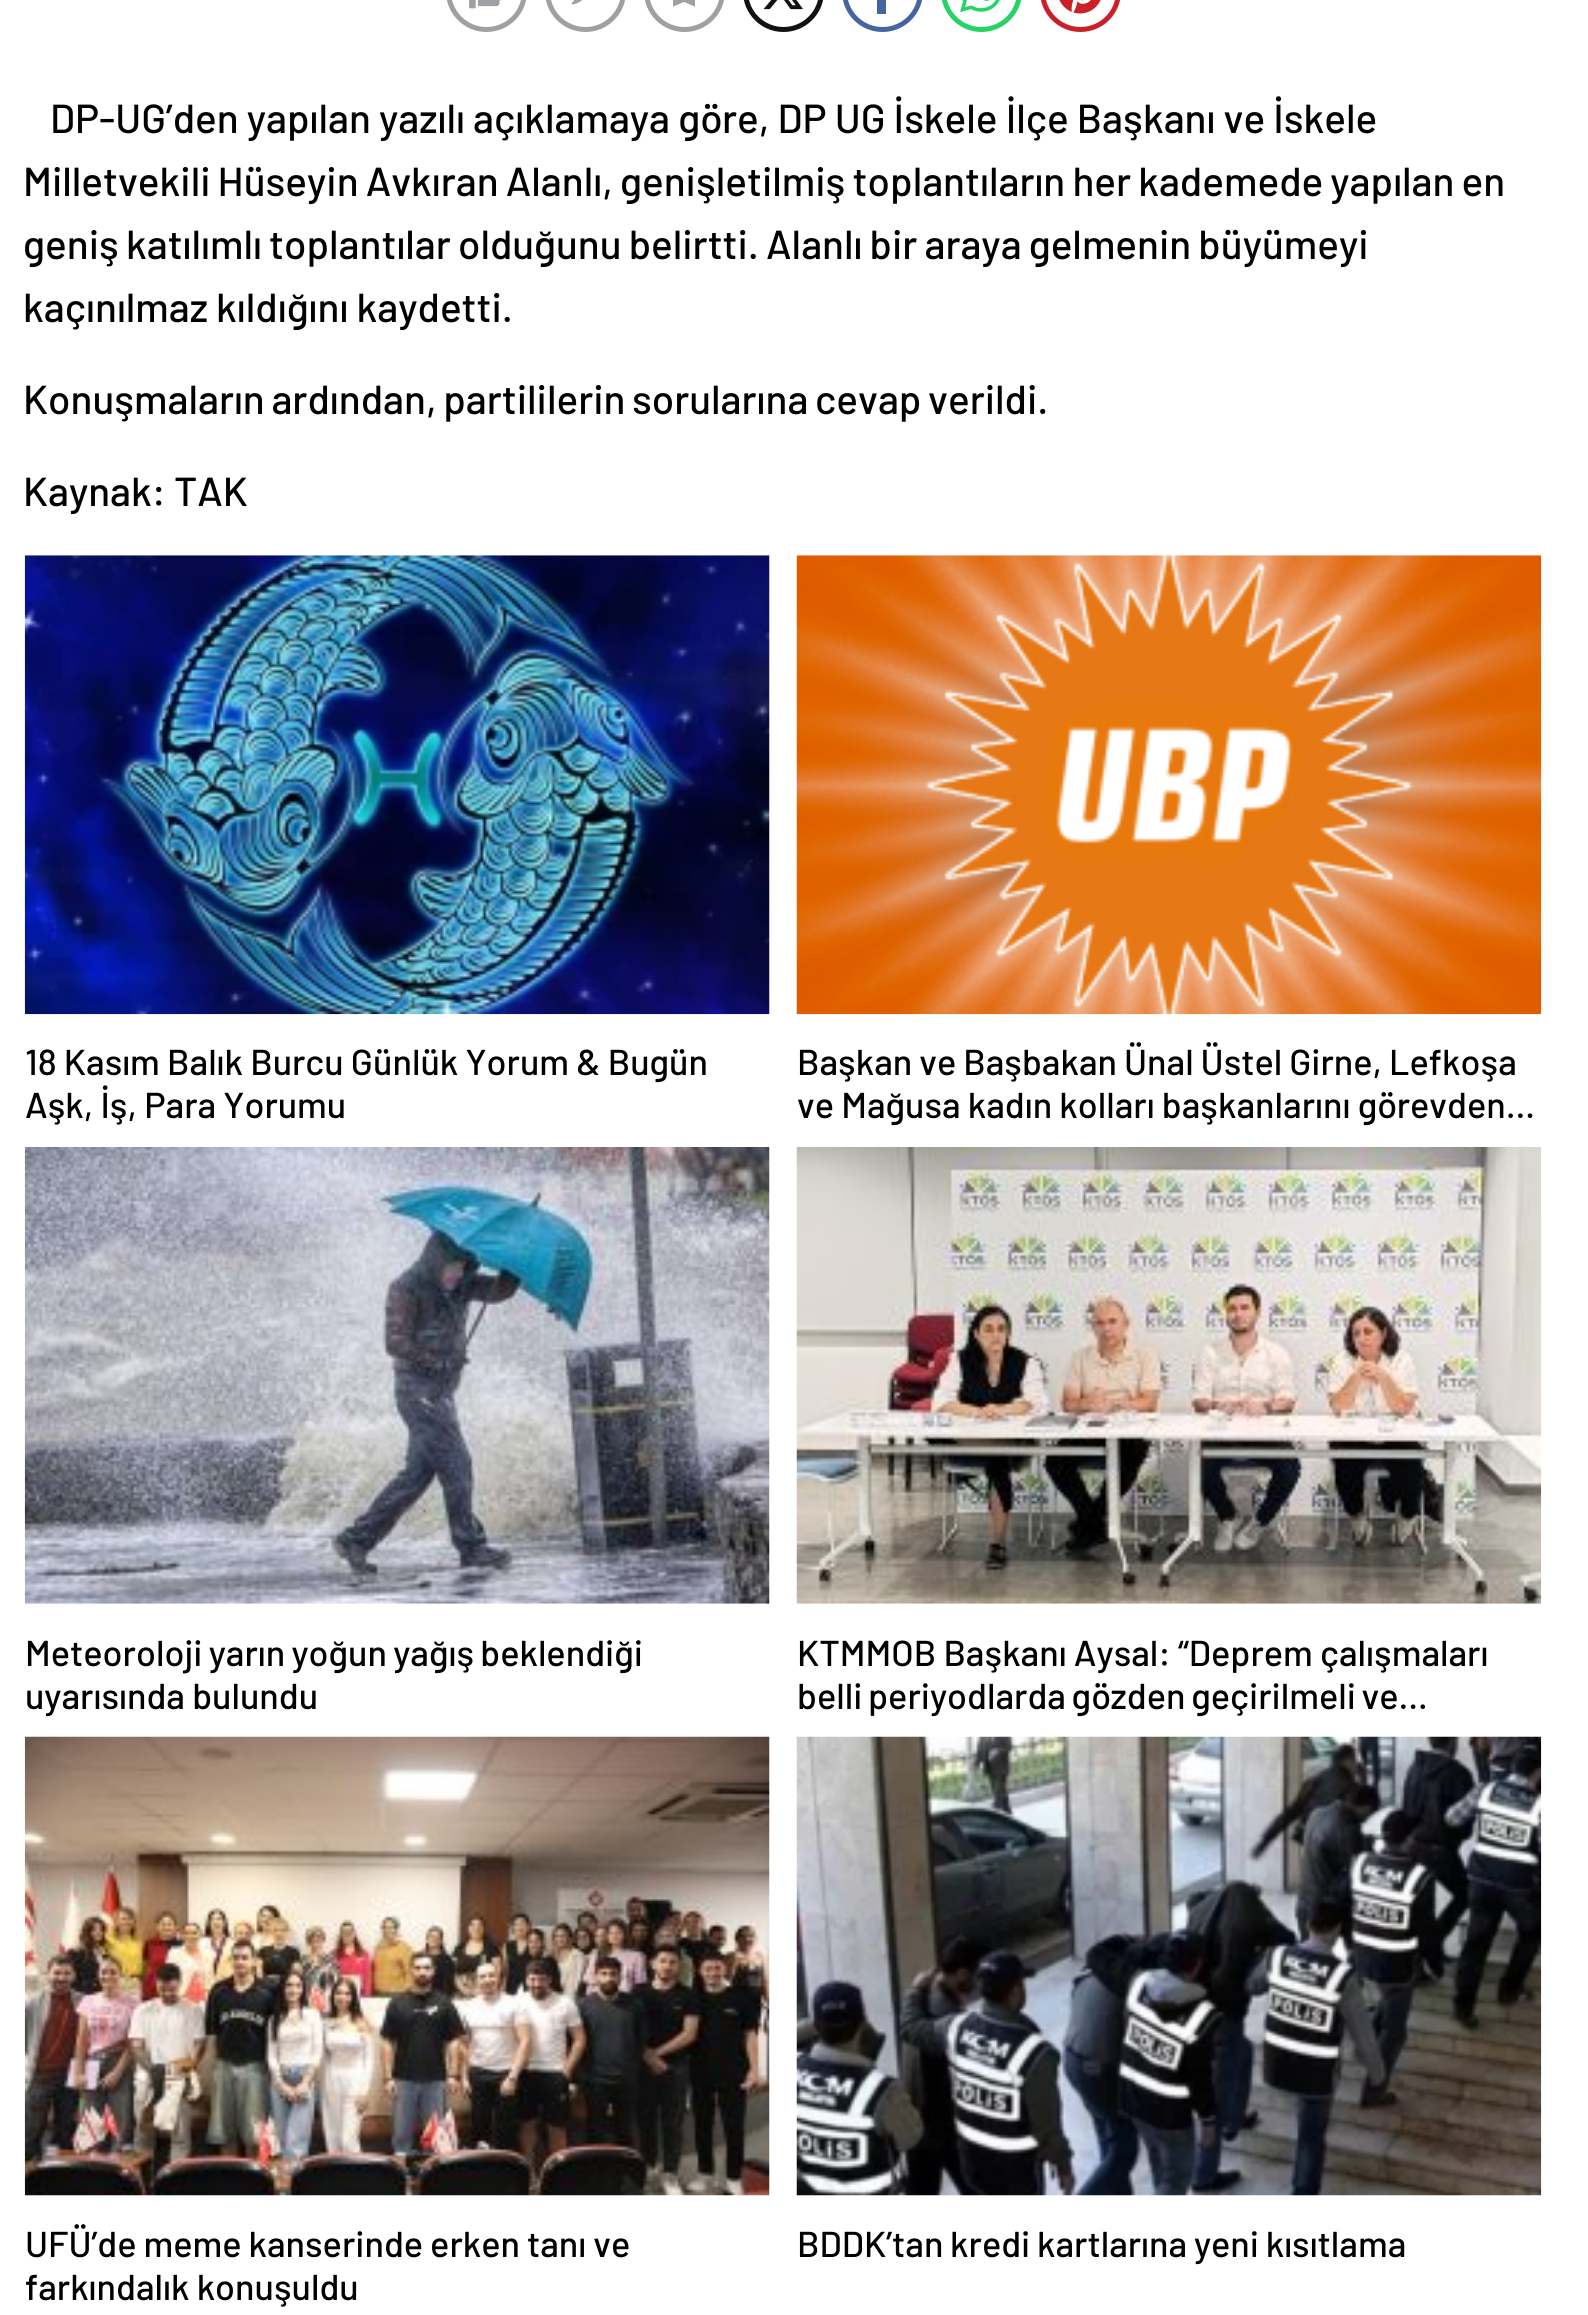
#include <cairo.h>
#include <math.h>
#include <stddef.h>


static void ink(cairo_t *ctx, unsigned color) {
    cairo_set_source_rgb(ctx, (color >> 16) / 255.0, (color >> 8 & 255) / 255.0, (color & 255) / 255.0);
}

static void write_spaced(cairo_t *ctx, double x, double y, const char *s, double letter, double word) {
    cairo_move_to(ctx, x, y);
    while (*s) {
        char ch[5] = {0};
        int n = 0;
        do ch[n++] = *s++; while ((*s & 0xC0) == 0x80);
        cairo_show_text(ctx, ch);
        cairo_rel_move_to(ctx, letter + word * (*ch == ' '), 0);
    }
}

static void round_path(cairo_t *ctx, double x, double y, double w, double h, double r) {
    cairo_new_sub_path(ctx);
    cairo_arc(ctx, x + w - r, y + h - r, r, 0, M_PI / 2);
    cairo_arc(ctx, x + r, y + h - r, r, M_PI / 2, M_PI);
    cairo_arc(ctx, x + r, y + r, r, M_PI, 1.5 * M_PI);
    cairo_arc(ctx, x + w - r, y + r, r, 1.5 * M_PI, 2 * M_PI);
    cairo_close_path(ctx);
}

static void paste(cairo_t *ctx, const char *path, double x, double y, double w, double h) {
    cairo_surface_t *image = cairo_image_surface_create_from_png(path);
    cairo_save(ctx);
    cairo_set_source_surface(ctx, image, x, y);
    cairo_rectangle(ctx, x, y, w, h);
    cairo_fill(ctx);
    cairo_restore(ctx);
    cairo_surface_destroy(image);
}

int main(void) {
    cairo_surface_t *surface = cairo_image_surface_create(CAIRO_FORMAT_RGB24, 1588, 2315);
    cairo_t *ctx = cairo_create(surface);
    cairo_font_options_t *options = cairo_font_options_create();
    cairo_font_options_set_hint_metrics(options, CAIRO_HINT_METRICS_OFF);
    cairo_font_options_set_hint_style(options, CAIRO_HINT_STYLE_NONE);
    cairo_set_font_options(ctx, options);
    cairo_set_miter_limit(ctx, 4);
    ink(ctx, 0xFFFFFF);
    cairo_paint(ctx);
    round_path(ctx, 448.5, -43.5, 76, 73, 38);
    ink(ctx, 0x9DA1A4);
    cairo_set_line_width(ctx, 5);
    cairo_stroke(ctx);
    paste(ctx, "media/1.png", 469, 0, 32, 9);
    round_path(ctx, 547.5, -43.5, 76, 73, 38);
    cairo_stroke(ctx);
    paste(ctx, "media/2.png", 571, 0, 11, 5);
    round_path(ctx, 646.5, -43.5, 76, 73, 38);
    cairo_stroke(ctx);
    paste(ctx, "media/3.png", 673, 0, 22, 7);
    round_path(ctx, 745.5, -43.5, 76, 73, 38);
    ink(ctx, 0x111111);
    cairo_stroke(ctx);
    paste(ctx, "media/4.png", 763, 0, 40, 10);
    round_path(ctx, 844.5, -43.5, 76, 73, 38);
    ink(ctx, 0x4565A0);
    cairo_stroke(ctx);
    cairo_rectangle(ctx, 877, 0, 9, 14);
    cairo_fill(ctx);
    round_path(ctx, 943.5, -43.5, 76, 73, 38);
    ink(ctx, 0x25D366);
    cairo_stroke(ctx);
    paste(ctx, "media/5.png", 960, 0, 40, 12);
    round_path(ctx, 1042.5, -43.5, 76, 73, 38);
    ink(ctx, 0xCB2027);
    cairo_stroke(ctx);
    paste(ctx, "media/6.png", 1059, 0, 42, 14);
    cairo_select_font_face(ctx, "Barlow Medium", CAIRO_FONT_SLANT_NORMAL, CAIRO_FONT_WEIGHT_NORMAL);
    cairo_set_font_size(ctx, 40.5);
    ink(ctx, 0x000000);
    cairo_move_to(ctx, 50, 133);
    cairo_show_text(ctx, "DP-UG’den yapılan yazılı açıklamaya göre, DP UG İskele İlçe Başkanı ve İskele");
    write_spaced(ctx, 23, 196, "Milletvekili Hüseyin Avkıran Alanlı, genişletilmiş toplantıların her kademede yapılan en", 0, -1);
    write_spaced(ctx, 23, 259, "geniş katılımlı toplantılar olduğunu belirtti. Alanlı bir araya gelmenin büyümeyi", 0, -1);
    cairo_move_to(ctx, 23, 322);
    cairo_show_text(ctx, "kaçınılmaz kıldığını kaydetti.");
    write_spaced(ctx, 23, 414, "Konuşmaların ardından, partililerin sorularına cevap verildi.", 0, -1.5);
    cairo_move_to(ctx, 23, 506);
    cairo_show_text(ctx, "Kaynak: TAK");
    paste(ctx, "media/7.png", 24, 555, 746, 460);
    cairo_set_font_size(ctx, 36);
    cairo_move_to(ctx, 25, 1075);
    cairo_show_text(ctx, "18 Kasım Balık Burcu Günlük Yorum & Bugün");
    cairo_move_to(ctx, 25, 1118);
    cairo_show_text(ctx, "Aşk, İş, Para Yorumu");
    paste(ctx, "media/8.png", 796, 555, 746, 460);
    write_spaced(ctx, 797, 1075, "Başkan ve Başbakan Ünal Üstel Girne, Lefkoşa", 0, -0.25);
    cairo_move_to(ctx, 797, 1118);
    cairo_show_text(ctx, "ve Mağusa kadın kolları başkanlarını görevden…");
    paste(ctx, "media/9.png", 24, 1147, 746, 457);
    write_spaced(ctx, 25, 1666, "Meteoroloji yarın yoğun yağış beklendiği", 0, -1);
    cairo_move_to(ctx, 25, 1709);
    cairo_show_text(ctx, "uyarısında bulundu");
    paste(ctx, "media/10.png", 796, 1147, 746, 457);
    cairo_move_to(ctx, 797, 1666);
    cairo_show_text(ctx, "KTMMOB Başkanı Aysal: “Deprem çalışmaları");
    write_spaced(ctx, 797, 1709, "belli periyodlarda gözden geçirilmeli ve…", 0, -1.5);
    paste(ctx, "media/11.png", 24, 1736, 746, 460);
    write_spaced(ctx, 25, 2257, "UFÜ’de meme kanserinde erken tanı ve", 0, -0.25);
    cairo_move_to(ctx, 25, 2300);
    cairo_show_text(ctx, "farkındalık konuşuldu");
    paste(ctx, "media/12.png", 796, 1736, 746, 460);
    write_spaced(ctx, 797, 2257, "BDDK’tan kredi kartlarına yeni kısıtlama", 0, -0.5);
    cairo_surface_write_to_png(surface, "image.png");
    cairo_font_options_destroy(options);
    cairo_destroy(ctx);
    cairo_surface_destroy(surface);
    return 0;
}
